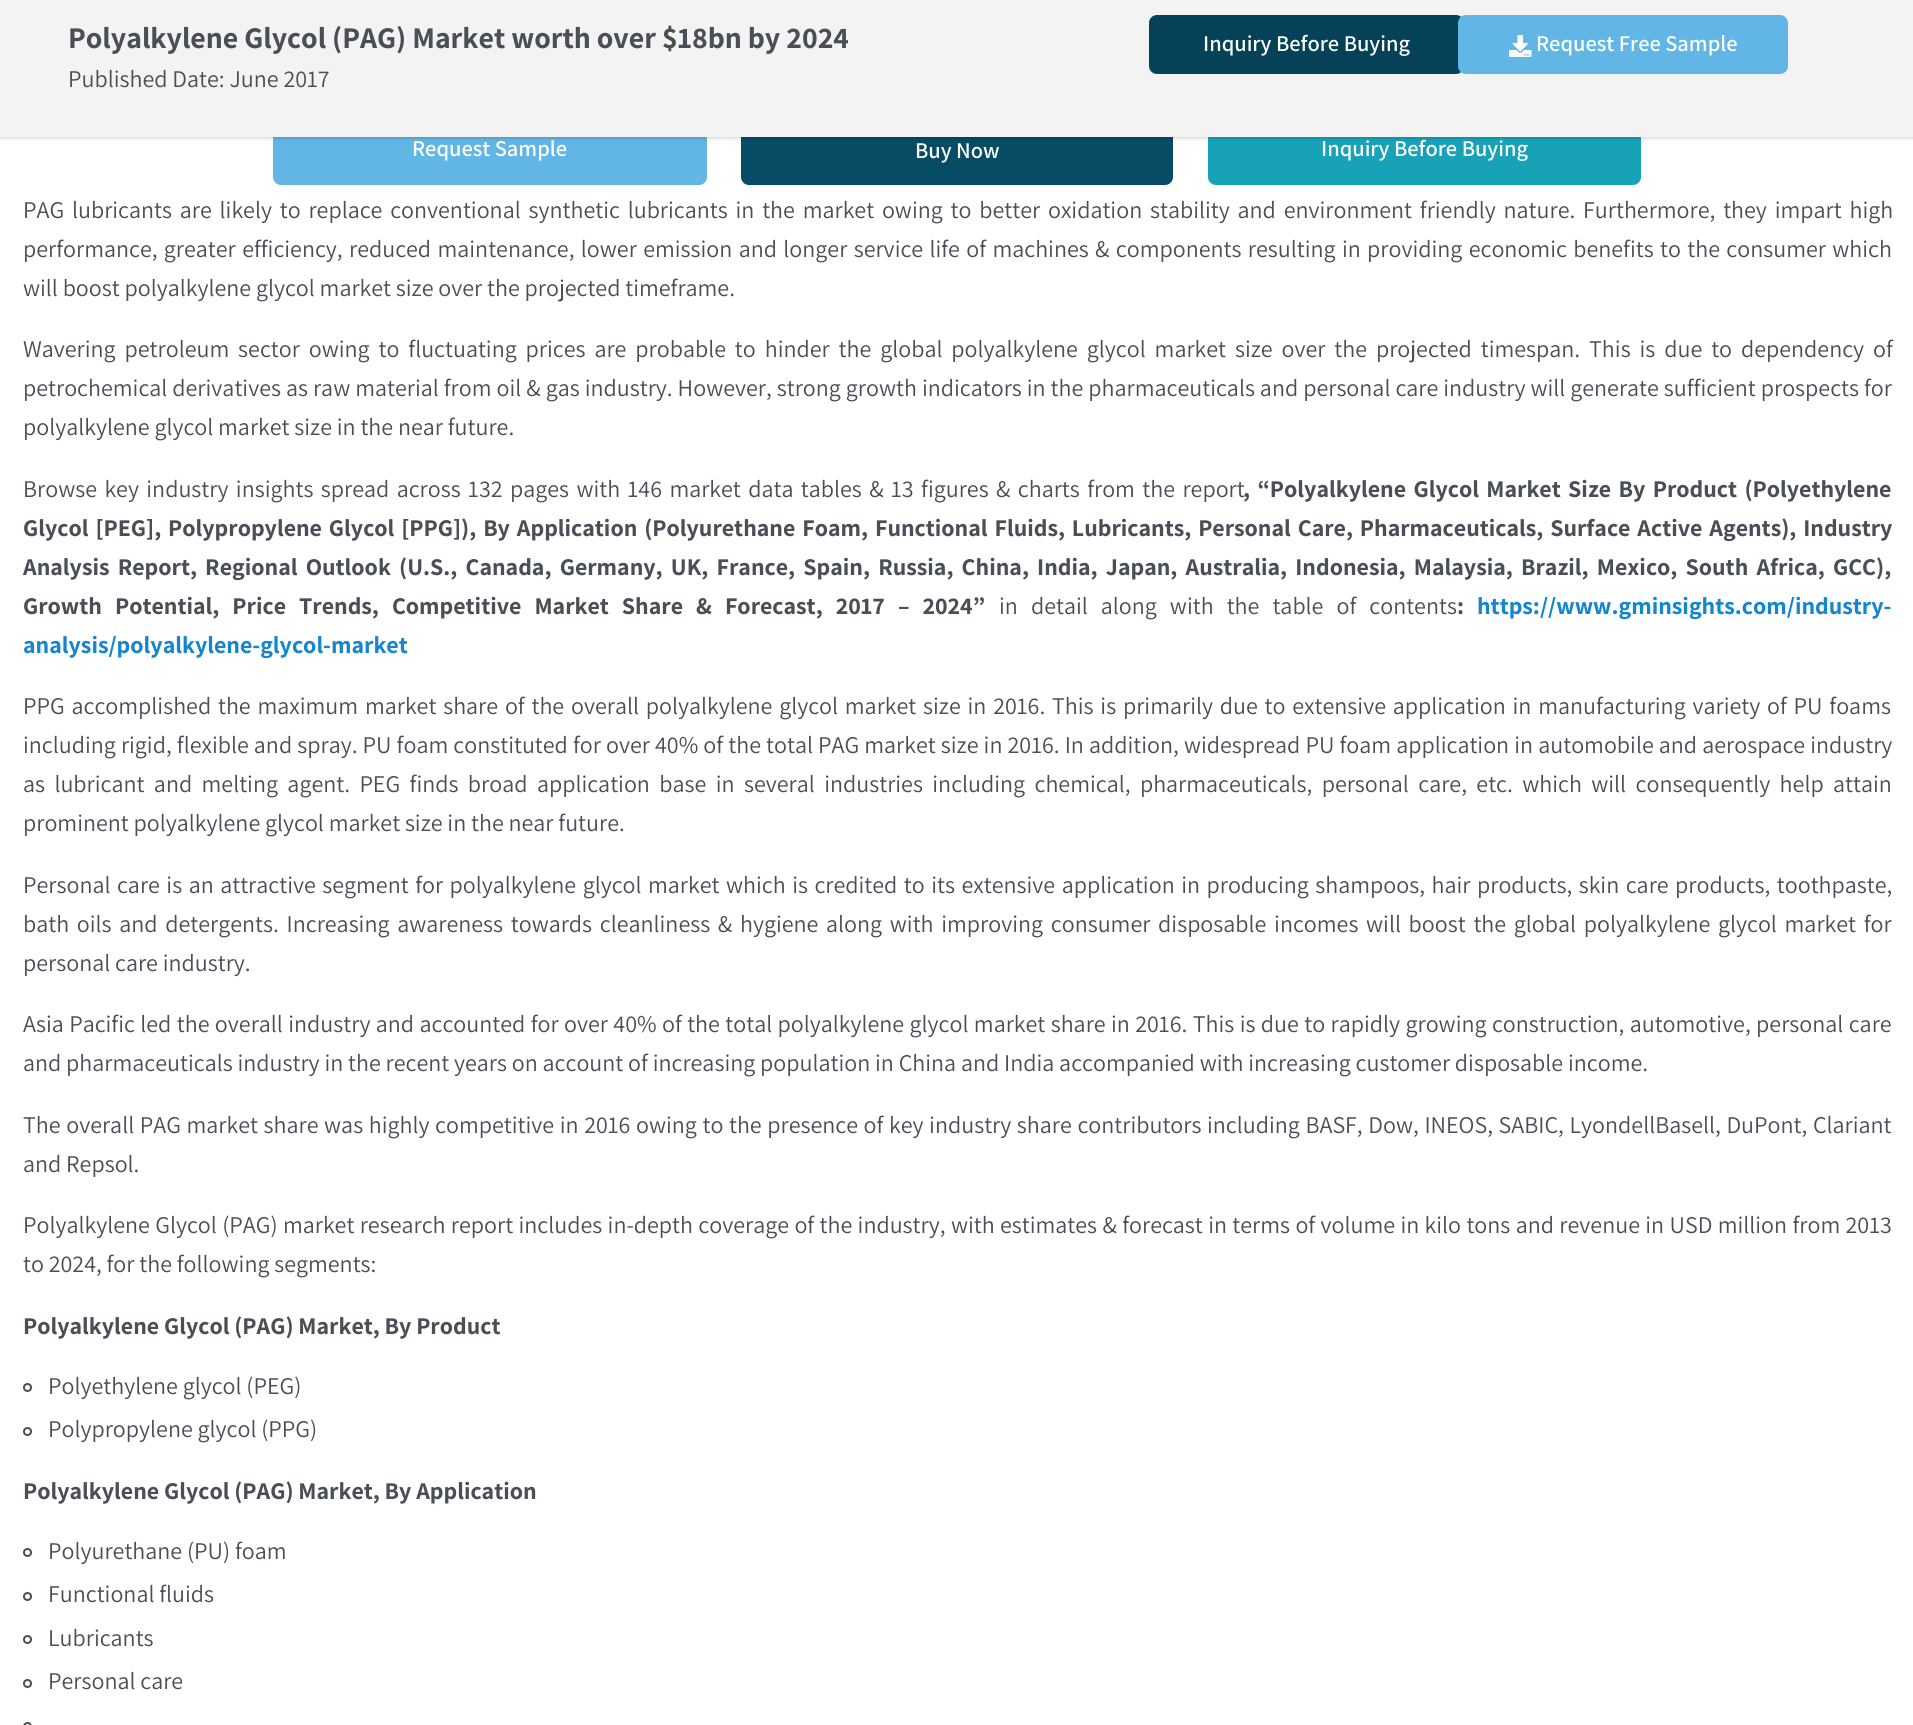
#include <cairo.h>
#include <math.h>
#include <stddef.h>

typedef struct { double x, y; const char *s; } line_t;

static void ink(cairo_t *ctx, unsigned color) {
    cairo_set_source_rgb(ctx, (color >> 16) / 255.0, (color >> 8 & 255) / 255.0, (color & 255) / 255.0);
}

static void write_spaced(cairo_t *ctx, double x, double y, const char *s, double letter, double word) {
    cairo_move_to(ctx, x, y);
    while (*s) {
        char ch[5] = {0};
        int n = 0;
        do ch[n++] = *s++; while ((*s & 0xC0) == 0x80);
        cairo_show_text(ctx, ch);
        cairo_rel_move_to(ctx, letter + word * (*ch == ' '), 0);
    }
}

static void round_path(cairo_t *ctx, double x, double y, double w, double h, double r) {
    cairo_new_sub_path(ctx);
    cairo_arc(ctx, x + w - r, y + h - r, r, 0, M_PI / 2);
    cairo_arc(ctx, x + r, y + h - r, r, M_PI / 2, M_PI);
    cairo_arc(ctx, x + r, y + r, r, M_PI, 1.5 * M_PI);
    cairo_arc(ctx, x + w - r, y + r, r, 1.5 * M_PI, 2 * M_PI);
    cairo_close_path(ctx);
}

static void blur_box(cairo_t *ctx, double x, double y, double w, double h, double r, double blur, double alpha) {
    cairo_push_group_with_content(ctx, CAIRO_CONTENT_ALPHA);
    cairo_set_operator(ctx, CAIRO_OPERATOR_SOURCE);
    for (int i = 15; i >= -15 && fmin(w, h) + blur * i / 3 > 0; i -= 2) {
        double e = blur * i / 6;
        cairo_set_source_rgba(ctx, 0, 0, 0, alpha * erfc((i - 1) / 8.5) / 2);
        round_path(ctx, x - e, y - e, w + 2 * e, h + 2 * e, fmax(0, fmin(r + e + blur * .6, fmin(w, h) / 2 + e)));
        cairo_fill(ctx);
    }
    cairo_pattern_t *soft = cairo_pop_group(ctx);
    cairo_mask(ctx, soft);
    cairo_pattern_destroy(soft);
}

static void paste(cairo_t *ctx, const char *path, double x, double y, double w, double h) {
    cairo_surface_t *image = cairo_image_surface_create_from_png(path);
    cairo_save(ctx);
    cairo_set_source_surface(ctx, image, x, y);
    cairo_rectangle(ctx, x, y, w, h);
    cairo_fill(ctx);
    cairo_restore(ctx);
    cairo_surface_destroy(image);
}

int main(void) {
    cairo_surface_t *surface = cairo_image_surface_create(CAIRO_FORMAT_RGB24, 1913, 1725);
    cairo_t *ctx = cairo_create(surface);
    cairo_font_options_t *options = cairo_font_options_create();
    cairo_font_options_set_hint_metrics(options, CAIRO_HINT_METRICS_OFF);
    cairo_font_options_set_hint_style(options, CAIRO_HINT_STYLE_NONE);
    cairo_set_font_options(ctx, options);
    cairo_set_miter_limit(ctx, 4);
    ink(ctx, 0xFFFFFF);
    cairo_paint(ctx);
    ink(ctx, 0x61B6E6);
    round_path(ctx, 274.5, 115.5, 431, 68, 6.5);
    cairo_fill_preserve(ctx);
    cairo_set_line_width(ctx, 3);
    cairo_stroke(ctx);
    ink(ctx, 0x074C65);
    round_path(ctx, 744, 117, 426, 65, 5);
    cairo_fill_preserve(ctx);
    cairo_set_line_width(ctx, 6);
    cairo_stroke(ctx);
    ink(ctx, 0x17A2B8);
    round_path(ctx, 1209.5, 115.5, 430, 68, 6.5);
    cairo_fill_preserve(ctx);
    cairo_set_line_width(ctx, 3);
    cairo_stroke(ctx);
    ink(ctx, 0x000000);
    blur_box(ctx, 0, 2, 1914, 136, 0, 2, 0.2);
    ink(ctx, 0xF3F3F3);
    cairo_rectangle(ctx, 0, 0, 1913, 137);
    cairo_fill(ctx);
    cairo_select_font_face(ctx, "Assistant", CAIRO_FONT_SLANT_NORMAL, CAIRO_FONT_WEIGHT_BOLD);
    cairo_set_font_size(ctx, 30);
    ink(ctx, 0x4A4E56);
    cairo_move_to(ctx, 68, 48);
    cairo_show_text(ctx, "Polyalkylene Glycol (PAG) Market worth over $18bn by 2024");
    cairo_select_font_face(ctx, "Assistant", CAIRO_FONT_SLANT_NORMAL, CAIRO_FONT_WEIGHT_NORMAL);
    cairo_set_font_size(ctx, 24);
    cairo_move_to(ctx, 68, 87);
    cairo_show_text(ctx, "Published Date: June 2017");
    ink(ctx, 0x054157);
    round_path(ctx, 1150, 16, 313, 57, 7);
    cairo_fill_preserve(ctx);
    cairo_set_line_width(ctx, 2);
    cairo_stroke(ctx);
    cairo_select_font_face(ctx, "Assistant SemiBold", CAIRO_FONT_SLANT_NORMAL, CAIRO_FONT_WEIGHT_NORMAL);
    cairo_set_font_size(ctx, 22.5);
    ink(ctx, 0xFFFFFF);
    cairo_move_to(ctx, 1203, 51);
    cairo_show_text(ctx, "Inquiry Before Buying");
    ink(ctx, 0x61B6E6);
    round_path(ctx, 1459.5, 16.5, 327, 56, 6.5);
    cairo_fill_preserve(ctx);
    cairo_set_line_width(ctx, 3);
    cairo_stroke(ctx);
    paste(ctx, "media/1.png", 1509, 35, 23, 22);
    ink(ctx, 0xFFFFFF);
    {
        static const line_t items[] = {
            {1536, 51, "Request Free Sample"},
            {412, 156, "Request Sample"},
            {915, 158, "Buy Now"},
            {1321, 156, "Inquiry Before Buying"},
        };
        for (size_t i = 0; i < sizeof items / sizeof *items; i++) {
            cairo_move_to(ctx, items[i].x, items[i].y);
            cairo_show_text(ctx, items[i].s);
        }
    }
    cairo_select_font_face(ctx, "Assistant", CAIRO_FONT_SLANT_NORMAL, CAIRO_FONT_WEIGHT_NORMAL);
    cairo_set_font_size(ctx, 24);
    ink(ctx, 0x4A4E56);
    write_spaced(ctx, 23, 218, "PAG lubricants are likely to replace conventional synthetic lubricants in the market owing to better oxidation stability and environment friendly nature. Furthermore, they impart high", 0, 3);
    write_spaced(ctx, 23, 257, "performance, greater efficiency, reduced maintenance, lower emission and longer service life of machines & components resulting in providing economic benefits to the consumer which", 0, 1.55);
    cairo_move_to(ctx, 23, 296);
    cairo_show_text(ctx, "will boost polyalkylene glycol market size over the projected timeframe.");
    write_spaced(ctx, 23, 357, "Wavering petroleum sector owing to fluctuating prices are probable to hinder the global polyalkylene glycol market size over the projected timespan. This is due to dependency of", 0, 4.1);
    write_spaced(ctx, 23, 396, "petrochemical derivatives as raw material from oil & gas industry. However, strong growth indicators in the pharmaceuticals and personal care industry will generate sufficient prospects for", 0, 0.2);
    cairo_move_to(ctx, 23, 435);
    cairo_show_text(ctx, "polyalkylene glycol market size in the near future.");
    write_spaced(ctx, 23, 497, "Browse key industry insights spread across 132 pages with 146 market data tables & 13 figures & charts from the report", 0, 2.6);
    cairo_select_font_face(ctx, "Assistant", CAIRO_FONT_SLANT_NORMAL, CAIRO_FONT_WEIGHT_BOLD);
    write_spaced(ctx, 1243, 497, ", “Polyalkylene Glycol Market Size By Product (Polyethylene", 0, 2.6);
    write_spaced(ctx, 23, 536, "Glycol [PEG], Polypropylene Glycol [PPG]), By Application (Polyurethane Foam, Functional Fluids, Lubricants, Personal Care, Pharmaceuticals, Surface Active Agents), Industry", 0, 2.1);
    write_spaced(ctx, 23, 575, "Analysis Report, Regional Outlook (U.S., Canada, Germany, UK, France, Spain, Russia, China, India, Japan, Australia, Indonesia, Malaysia, Brazil, Mexico, South Africa, GCC),", 0, 3.4);
    write_spaced(ctx, 23, 614, "Growth Potential, Price Trends, Competitive Market Share & Forecast, 2017 – 2024”", 0, 8.25);
    cairo_select_font_face(ctx, "Assistant", CAIRO_FONT_SLANT_NORMAL, CAIRO_FONT_WEIGHT_NORMAL);
    write_spaced(ctx, 999, 614, "in detail along with the table of contents", 0, 8.25);
    cairo_select_font_face(ctx, "Assistant", CAIRO_FONT_SLANT_NORMAL, CAIRO_FONT_WEIGHT_BOLD);
    cairo_move_to(ctx, 1457, 614);
    cairo_show_text(ctx, ":");
    ink(ctx, 0x1585CF);
    cairo_move_to(ctx, 1477, 614);
    cairo_show_text(ctx, "https://www.gminsights.com/industry-");
    cairo_move_to(ctx, 23, 653);
    cairo_show_text(ctx, "analysis/polyalkylene-glycol-market");
    cairo_select_font_face(ctx, "Assistant", CAIRO_FONT_SLANT_NORMAL, CAIRO_FONT_WEIGHT_NORMAL);
    ink(ctx, 0x4A4E56);
    write_spaced(ctx, 23, 714, "PPG accomplished the maximum market share of the overall polyalkylene glycol market size in 2016. This is primarily due to extensive application in manufacturing variety of PU foams", 0, 2);
    write_spaced(ctx, 23, 753, "including rigid, flexible and spray. PU foam constituted for over 40% of the total PAG market size in 2016. In addition, widespread PU foam application in automobile and aerospace industry", 0, 0.3);
    write_spaced(ctx, 23, 792, "as lubricant and melting agent. PEG finds broad application base in several industries including chemical, pharmaceuticals, personal care, etc. which will consequently help attain", 0, 4.6);
    cairo_move_to(ctx, 23, 831);
    cairo_show_text(ctx, "prominent polyalkylene glycol market size in the near future.");
    write_spaced(ctx, 23, 893, "Personal care is an attractive segment for polyalkylene glycol market which is credited to its extensive application in producing shampoos, hair products, skin care products, toothpaste,", 0, 1.7);
    write_spaced(ctx, 23, 932, "bath oils and detergents. Increasing awareness towards cleanliness & hygiene along with improving consumer disposable incomes will boost the global polyalkylene glycol market for", 0, 2.9);
    cairo_move_to(ctx, 23, 971);
    cairo_show_text(ctx, "personal care industry.");
    write_spaced(ctx, 23, 1032, "Asia Pacific led the overall industry and accounted for over 40% of the total polyalkylene glycol market share in 2016. This is due to rapidly growing construction, automotive, personal care", 0, 0.6);
    cairo_move_to(ctx, 23, 1071);
    cairo_show_text(ctx, "and pharmaceuticals industry in the recent years on account of increasing population in China and India accompanied with increasing customer disposable income.");
    write_spaced(ctx, 23, 1133, "The overall PAG market share was highly competitive in 2016 owing to the presence of key industry share contributors including BASF, Dow, INEOS, SABIC, LyondellBasell, DuPont, Clariant", 0, 0.8);
    cairo_move_to(ctx, 23, 1172);
    cairo_show_text(ctx, "and Repsol.");
    write_spaced(ctx, 23, 1233, "Polyalkylene Glycol (PAG) market research report includes in-depth coverage of the industry, with estimates & forecast in terms of volume in kilo tons and revenue in USD million from 2013", 0, 0.55);
    cairo_move_to(ctx, 23, 1272);
    cairo_show_text(ctx, "to 2024, for the following segments:");
    cairo_select_font_face(ctx, "Assistant", CAIRO_FONT_SLANT_NORMAL, CAIRO_FONT_WEIGHT_BOLD);
    cairo_move_to(ctx, 23, 1334);
    cairo_show_text(ctx, "Polyalkylene Glycol (PAG) Market, By Product");
    cairo_new_path(ctx);
    cairo_arc(ctx, 27.5, 1387.5, 3.5, 0, 2 * M_PI);
    cairo_set_line_width(ctx, 2);
    cairo_stroke(ctx);
    cairo_select_font_face(ctx, "Assistant", CAIRO_FONT_SLANT_NORMAL, CAIRO_FONT_WEIGHT_NORMAL);
    cairo_move_to(ctx, 48, 1394);
    cairo_show_text(ctx, "Polyethylene glycol (PEG)");
    cairo_new_path(ctx);
    cairo_arc(ctx, 27.5, 1431.5, 3.5, 0, 2 * M_PI);
    cairo_stroke(ctx);
    cairo_move_to(ctx, 48, 1437);
    cairo_show_text(ctx, "Polypropylene glycol (PPG)");
    cairo_select_font_face(ctx, "Assistant", CAIRO_FONT_SLANT_NORMAL, CAIRO_FONT_WEIGHT_BOLD);
    cairo_move_to(ctx, 23, 1499);
    cairo_show_text(ctx, "Polyalkylene Glycol (PAG) Market, By Application");
    cairo_new_path(ctx);
    cairo_arc(ctx, 27.5, 1552.5, 3.5, 0, 2 * M_PI);
    cairo_stroke(ctx);
    cairo_select_font_face(ctx, "Assistant", CAIRO_FONT_SLANT_NORMAL, CAIRO_FONT_WEIGHT_NORMAL);
    cairo_move_to(ctx, 48, 1559);
    cairo_show_text(ctx, "Polyurethane (PU) foam");
    cairo_new_path(ctx);
    cairo_arc(ctx, 27.5, 1596.5, 3.5, 0, 2 * M_PI);
    cairo_stroke(ctx);
    cairo_move_to(ctx, 48, 1602);
    cairo_show_text(ctx, "Functional fluids");
    cairo_new_path(ctx);
    cairo_arc(ctx, 27.5, 1639.5, 3.5, 0, 2 * M_PI);
    cairo_stroke(ctx);
    cairo_move_to(ctx, 48, 1646);
    cairo_show_text(ctx, "Lubricants");
    cairo_new_path(ctx);
    cairo_arc(ctx, 27.5, 1683.5, 3.5, 0, 2 * M_PI);
    cairo_stroke(ctx);
    cairo_move_to(ctx, 48, 1689);
    cairo_show_text(ctx, "Personal care");
    cairo_new_path(ctx);
    cairo_arc(ctx, 27.5, 1726.5, 3.5, 0, 2 * M_PI);
    cairo_stroke(ctx);
    cairo_surface_write_to_png(surface, "image.png");
    cairo_font_options_destroy(options);
    cairo_destroy(ctx);
    cairo_surface_destroy(surface);
    return 0;
}
